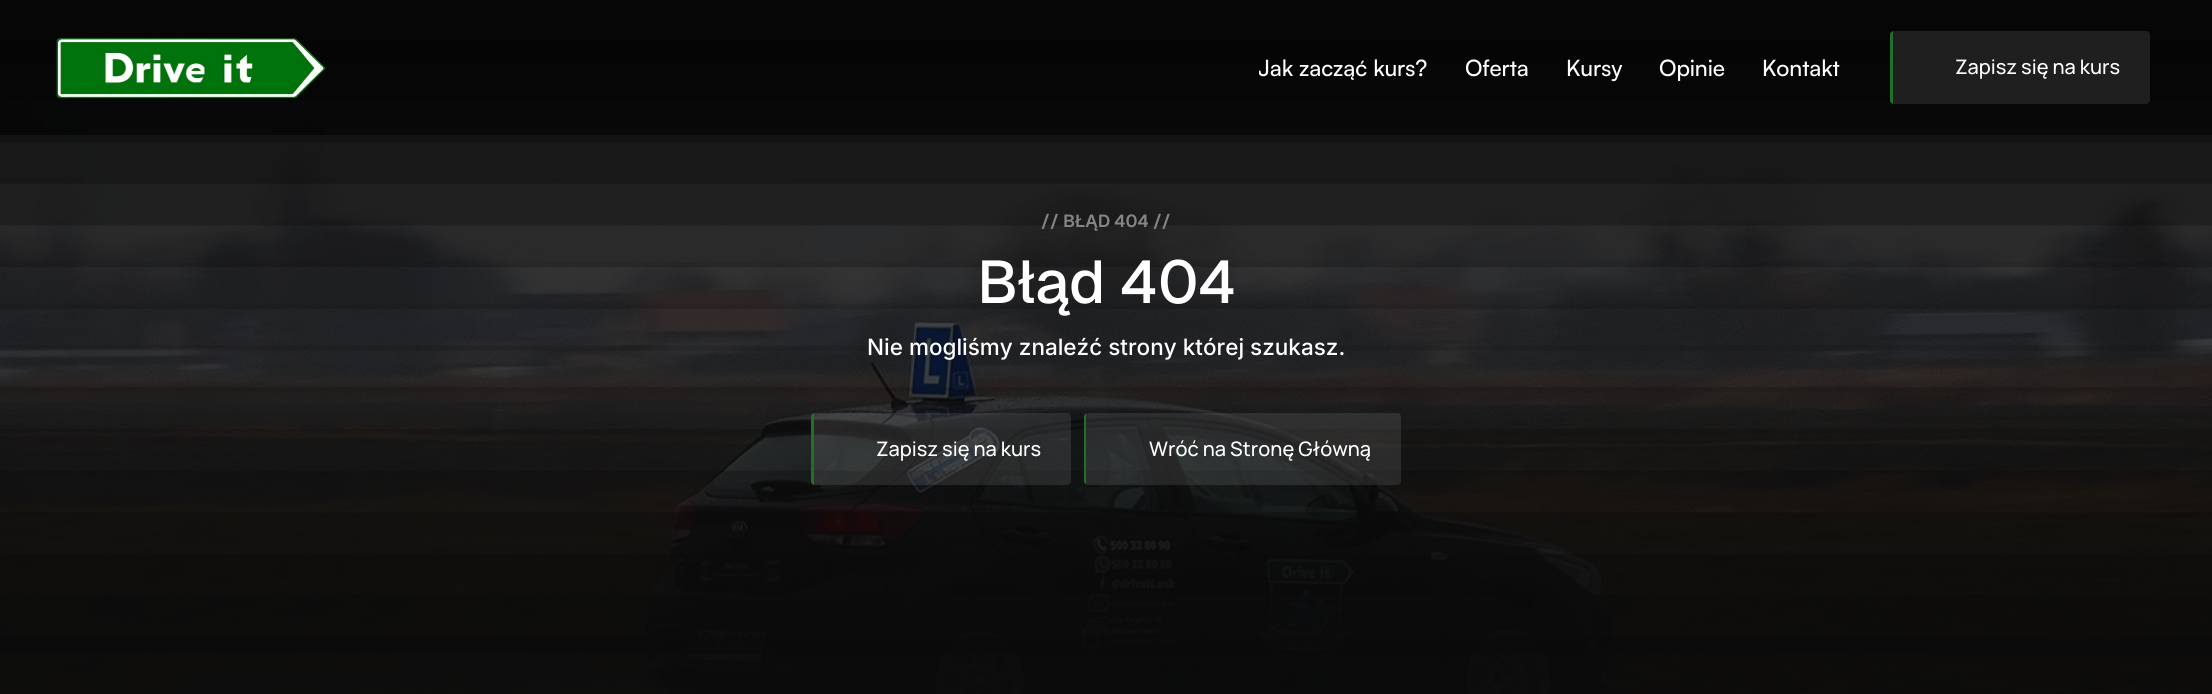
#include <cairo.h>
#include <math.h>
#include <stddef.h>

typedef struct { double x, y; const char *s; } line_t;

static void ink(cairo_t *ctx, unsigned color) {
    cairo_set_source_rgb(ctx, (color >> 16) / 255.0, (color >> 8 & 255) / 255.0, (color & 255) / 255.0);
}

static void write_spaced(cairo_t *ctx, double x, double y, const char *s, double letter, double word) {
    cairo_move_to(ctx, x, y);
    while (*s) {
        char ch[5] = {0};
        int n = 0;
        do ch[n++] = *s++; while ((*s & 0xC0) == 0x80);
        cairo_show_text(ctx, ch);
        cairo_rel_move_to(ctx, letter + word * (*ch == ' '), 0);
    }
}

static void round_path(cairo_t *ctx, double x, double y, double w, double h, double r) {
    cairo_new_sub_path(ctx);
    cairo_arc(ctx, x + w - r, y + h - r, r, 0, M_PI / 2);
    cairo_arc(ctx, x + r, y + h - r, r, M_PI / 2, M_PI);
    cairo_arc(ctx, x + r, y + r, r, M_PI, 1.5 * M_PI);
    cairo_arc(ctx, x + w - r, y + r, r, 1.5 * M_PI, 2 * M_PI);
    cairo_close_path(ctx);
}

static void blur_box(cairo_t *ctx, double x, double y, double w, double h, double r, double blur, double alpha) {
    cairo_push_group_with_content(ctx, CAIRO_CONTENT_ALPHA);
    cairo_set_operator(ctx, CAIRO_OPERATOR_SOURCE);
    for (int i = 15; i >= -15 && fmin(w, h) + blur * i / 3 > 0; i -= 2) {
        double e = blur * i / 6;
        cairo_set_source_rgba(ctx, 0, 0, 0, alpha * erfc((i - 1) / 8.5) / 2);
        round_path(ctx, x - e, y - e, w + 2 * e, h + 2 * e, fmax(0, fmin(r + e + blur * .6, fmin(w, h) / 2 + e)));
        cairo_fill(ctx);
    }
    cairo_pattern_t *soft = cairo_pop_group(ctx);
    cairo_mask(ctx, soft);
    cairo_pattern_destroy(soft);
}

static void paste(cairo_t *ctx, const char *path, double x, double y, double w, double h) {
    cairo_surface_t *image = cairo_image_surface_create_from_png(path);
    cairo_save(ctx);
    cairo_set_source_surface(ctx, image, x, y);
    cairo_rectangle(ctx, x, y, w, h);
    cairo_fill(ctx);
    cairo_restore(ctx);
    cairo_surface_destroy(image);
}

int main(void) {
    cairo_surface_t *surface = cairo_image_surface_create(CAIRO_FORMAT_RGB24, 2212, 694);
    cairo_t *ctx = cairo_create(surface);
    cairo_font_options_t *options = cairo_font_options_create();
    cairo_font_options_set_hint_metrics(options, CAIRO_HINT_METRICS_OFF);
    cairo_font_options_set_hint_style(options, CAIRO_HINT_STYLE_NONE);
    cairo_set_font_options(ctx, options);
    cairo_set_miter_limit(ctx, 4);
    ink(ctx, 0xFFFFFF);
    cairo_paint(ctx);
    paste(ctx, "media/2.png", 0, 0, 2212, 694);
    ink(ctx, 0x0A0A0A);
    blur_box(ctx, -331, -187, 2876, 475, 0, 125, 1);
    blur_box(ctx, -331, 408, 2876, 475, 0, 125, 1);
    cairo_set_source_rgba(ctx, 0, 0, 0, 0.6);
    cairo_rectangle(ctx, 0, 0, 2212, 135);
    cairo_fill(ctx);
    paste(ctx, "media/1.png", 56, 37, 270, 62);
    cairo_save(ctx);
    cairo_rectangle(ctx, 1259, 43, 169, 50);
    cairo_clip(ctx);
    cairo_select_font_face(ctx, "Satoshi Medium", CAIRO_FONT_SLANT_NORMAL, CAIRO_FONT_WEIGHT_NORMAL);
    cairo_set_font_size(ctx, 22.5);
    ink(ctx, 0xFFFFFF);
    write_spaced(ctx, 1258, 76, "Jak zacząć kurs?", -0.1, 0);
    cairo_restore(ctx);
    cairo_select_font_face(ctx, "Satoshi Medium", CAIRO_FONT_SLANT_NORMAL, CAIRO_FONT_WEIGHT_NORMAL);
    cairo_set_font_size(ctx, 22.5);
    ink(ctx, 0xFFFFFF);
    {
        static const line_t items[] = {
            {1465, 76, "Oferta"},
            {1566, 76, "Kursy"},
            {1659, 76, "Opinie"},
            {1762, 76, "Kontakt"},
        };
        for (size_t i = 0; i < sizeof items / sizeof *items; i++) {
            write_spaced(ctx, items[i].x, items[i].y, items[i].s, -0.1, 0);
        }
    }
    ink(ctx, 0x1F1F1F);
    round_path(ctx, 1890, 31, 260, 73, 4);
    cairo_fill(ctx);
    cairo_save(ctx);
    round_path(ctx, 1890, 31, 260, 73, 4);
    cairo_clip(ctx);
    ink(ctx, 0x217028);
    cairo_rectangle(ctx, 1890, 31, 3, 73);
    cairo_fill(ctx);
    cairo_restore(ctx);
    cairo_select_font_face(ctx, "Manrope ExtraLight", CAIRO_FONT_SLANT_NORMAL, CAIRO_FONT_WEIGHT_NORMAL);
    cairo_set_font_size(ctx, 20);
    ink(ctx, 0xFFFFFF);
    cairo_move_to(ctx, 1955, 74);
    cairo_show_text(ctx, "Zapisz się na kurs");
    cairo_select_font_face(ctx, "Geist SemiBold", CAIRO_FONT_SLANT_NORMAL, CAIRO_FONT_WEIGHT_NORMAL);
    cairo_set_font_size(ctx, 17.5);
    ink(ctx, 0x868586);
    cairo_move_to(ctx, 1041, 227);
    cairo_show_text(ctx, "// BŁĄD 404 //");
    cairo_select_font_face(ctx, "Geist Medium", CAIRO_FONT_SLANT_NORMAL, CAIRO_FONT_WEIGHT_NORMAL);
    cairo_set_font_size(ctx, 60);
    ink(ctx, 0xFFFFFF);
    cairo_move_to(ctx, 977, 303);
    cairo_show_text(ctx, "Błąd 404");
    cairo_select_font_face(ctx, "Inter Medium", CAIRO_FONT_SLANT_NORMAL, CAIRO_FONT_WEIGHT_NORMAL);
    cairo_set_font_size(ctx, 22.5);
    cairo_move_to(ctx, 867, 355);
    cairo_show_text(ctx, "Nie mogliśmy znaleźć strony której szukasz.");
    cairo_set_source_rgba(ctx, 1, 1, 1, 0.1);
    round_path(ctx, 811, 413, 260, 72, 4);
    cairo_fill(ctx);
    cairo_save(ctx);
    round_path(ctx, 811, 413, 260, 72, 4);
    cairo_clip(ctx);
    ink(ctx, 0x217028);
    cairo_rectangle(ctx, 811, 413, 3, 72);
    cairo_fill(ctx);
    cairo_restore(ctx);
    cairo_select_font_face(ctx, "Manrope ExtraLight", CAIRO_FONT_SLANT_NORMAL, CAIRO_FONT_WEIGHT_NORMAL);
    cairo_set_font_size(ctx, 20);
    ink(ctx, 0xFFFFFF);
    cairo_move_to(ctx, 876, 456);
    cairo_show_text(ctx, "Zapisz się na kurs");
    cairo_set_source_rgba(ctx, 1, 1, 1, 0.1);
    round_path(ctx, 1084, 413, 317, 72, 4);
    cairo_fill(ctx);
    cairo_save(ctx);
    round_path(ctx, 1084, 413, 317, 72, 4);
    cairo_clip(ctx);
    ink(ctx, 0x217028);
    cairo_rectangle(ctx, 1084, 413, 2, 72);
    cairo_fill(ctx);
    cairo_restore(ctx);
    ink(ctx, 0xFFFFFF);
    cairo_move_to(ctx, 1149, 456);
    cairo_show_text(ctx, "Wróć na Stronę Główną");
    cairo_surface_write_to_png(surface, "image.png");
    cairo_font_options_destroy(options);
    cairo_destroy(ctx);
    cairo_surface_destroy(surface);
    return 0;
}
